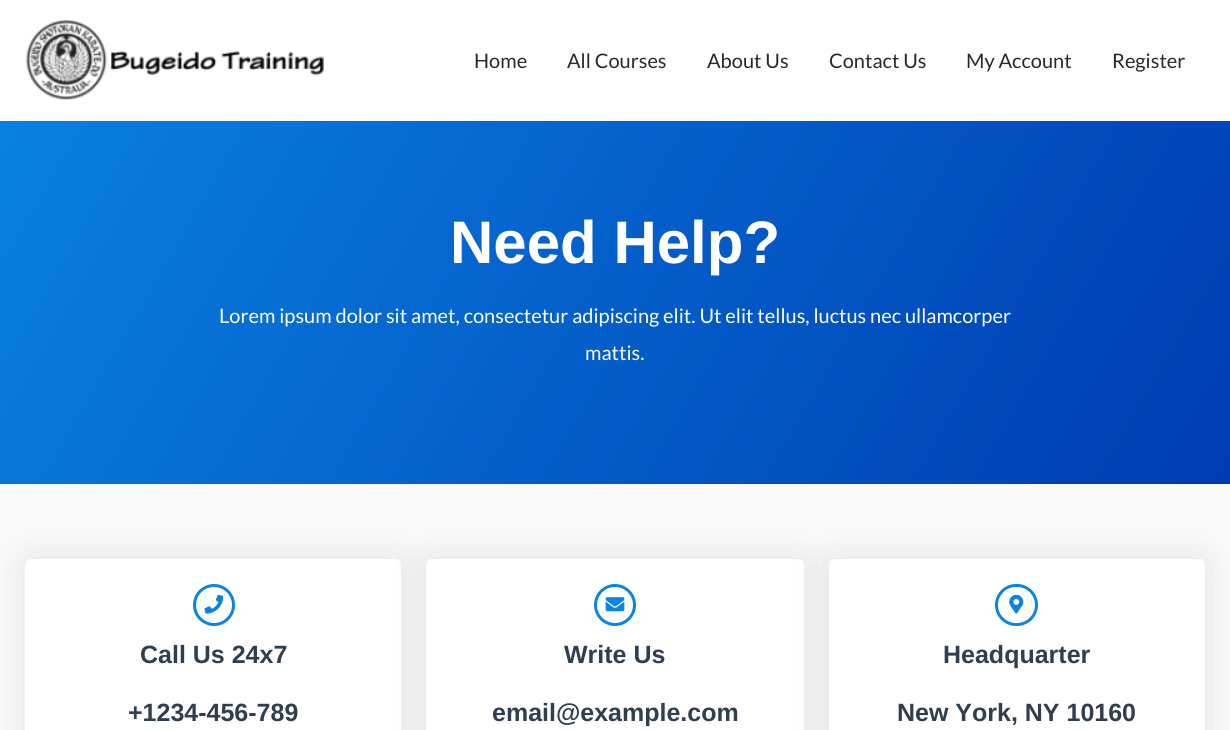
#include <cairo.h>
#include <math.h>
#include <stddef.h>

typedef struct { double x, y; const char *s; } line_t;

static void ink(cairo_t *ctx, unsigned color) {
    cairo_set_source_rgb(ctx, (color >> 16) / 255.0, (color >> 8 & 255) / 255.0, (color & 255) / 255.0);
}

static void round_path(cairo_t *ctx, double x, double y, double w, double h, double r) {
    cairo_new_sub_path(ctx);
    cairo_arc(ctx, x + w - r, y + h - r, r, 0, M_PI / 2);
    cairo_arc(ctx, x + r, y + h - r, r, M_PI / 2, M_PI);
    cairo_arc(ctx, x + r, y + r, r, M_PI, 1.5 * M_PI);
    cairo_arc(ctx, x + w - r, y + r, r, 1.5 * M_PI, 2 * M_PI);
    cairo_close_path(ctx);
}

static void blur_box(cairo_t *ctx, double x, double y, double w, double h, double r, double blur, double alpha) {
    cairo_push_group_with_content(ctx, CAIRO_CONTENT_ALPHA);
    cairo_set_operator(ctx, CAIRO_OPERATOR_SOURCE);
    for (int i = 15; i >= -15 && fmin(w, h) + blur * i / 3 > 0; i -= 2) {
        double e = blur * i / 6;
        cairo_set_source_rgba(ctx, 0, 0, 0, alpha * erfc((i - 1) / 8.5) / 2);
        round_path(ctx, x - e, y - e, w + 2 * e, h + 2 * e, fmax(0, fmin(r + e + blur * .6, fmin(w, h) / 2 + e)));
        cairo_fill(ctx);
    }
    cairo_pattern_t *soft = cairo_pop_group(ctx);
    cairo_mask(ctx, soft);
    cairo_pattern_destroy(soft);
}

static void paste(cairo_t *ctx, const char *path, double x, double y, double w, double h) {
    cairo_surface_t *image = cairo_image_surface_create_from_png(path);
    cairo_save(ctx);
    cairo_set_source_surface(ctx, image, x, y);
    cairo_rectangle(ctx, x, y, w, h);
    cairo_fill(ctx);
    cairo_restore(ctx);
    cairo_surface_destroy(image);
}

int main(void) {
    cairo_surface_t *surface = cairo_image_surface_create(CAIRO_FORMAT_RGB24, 1230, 730);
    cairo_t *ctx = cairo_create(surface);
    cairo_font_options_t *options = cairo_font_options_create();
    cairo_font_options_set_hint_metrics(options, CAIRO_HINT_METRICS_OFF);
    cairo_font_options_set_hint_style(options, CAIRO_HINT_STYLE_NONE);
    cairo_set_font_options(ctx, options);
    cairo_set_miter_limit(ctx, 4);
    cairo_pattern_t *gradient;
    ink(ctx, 0xFAFAFA);
    cairo_paint(ctx);
    ink(ctx, 0xFFFFFF);
    cairo_rectangle(ctx, 0, 0, 1230, 121);
    cairo_fill(ctx);
    paste(ctx, "media/1.png", 25, 20, 299, 81);
    cairo_select_font_face(ctx, "Lato", CAIRO_FONT_SLANT_NORMAL, CAIRO_FONT_WEIGHT_NORMAL);
    cairo_set_font_size(ctx, 20);
    ink(ctx, 0x292929);
    {
        static const line_t items[] = {
            {474, 68, "Home"},
            {567, 68, "All Courses"},
            {707, 68, "About Us"},
            {829, 68, "Contact Us"},
            {966, 68, "My Account"},
            {1112, 68, "Register"},
        };
        for (size_t i = 0; i < sizeof items / sizeof *items; i++) {
            cairo_move_to(ctx, items[i].x, items[i].y);
            cairo_show_text(ctx, items[i].s);
        }
    }
    gradient = cairo_pattern_create_linear(49, -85, 1181, 569);
    cairo_pattern_add_color_stop_rgba(gradient, 0, 0.035, 0.518, 0.89, 1);
    cairo_pattern_add_color_stop_rgba(gradient, 1, 0, 0.231, 0.694, 1);
    cairo_set_source(ctx, gradient);
    cairo_pattern_destroy(gradient);
    cairo_rectangle(ctx, 0, 121, 1230, 363);
    cairo_fill(ctx);
    cairo_select_font_face(ctx, "Liberation Sans", CAIRO_FONT_SLANT_NORMAL, CAIRO_FONT_WEIGHT_BOLD);
    cairo_set_font_size(ctx, 60);
    ink(ctx, 0xFFFFFF);
    cairo_move_to(ctx, 450, 263);
    cairo_show_text(ctx, "Need Help?");
    cairo_select_font_face(ctx, "Lato", CAIRO_FONT_SLANT_NORMAL, CAIRO_FONT_WEIGHT_NORMAL);
    cairo_set_font_size(ctx, 20);
    cairo_move_to(ctx, 219, 323);
    cairo_show_text(ctx, "Lorem ipsum dolor sit amet, consectetur adipiscing elit. Ut elit tellus, luctus nec ullamcorper");
    cairo_move_to(ctx, 585, 360);
    cairo_show_text(ctx, "mattis.");
    ink(ctx, 0x000000);
    blur_box(ctx, 25, 559, 376, 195, 6, 19, 0.1);
    ink(ctx, 0xFFFFFF);
    round_path(ctx, 25, 559, 376, 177, 6);
    cairo_fill(ctx);
    cairo_arc(ctx, 214, 605, 19.5, 0, 2 * M_PI);
    ink(ctx, 0x0984E3);
    cairo_set_line_width(ctx, 3);
    cairo_stroke(ctx);
    paste(ctx, "media/2.png", 204, 594, 20, 20);
    cairo_select_font_face(ctx, "Liberation Sans", CAIRO_FONT_SLANT_NORMAL, CAIRO_FONT_WEIGHT_BOLD);
    cairo_set_font_size(ctx, 25);
    ink(ctx, 0x2F3F50);
    cairo_move_to(ctx, 140, 663);
    cairo_show_text(ctx, "Call Us 24x7");
    cairo_move_to(ctx, 128, 721);
    cairo_show_text(ctx, "+1234-456-789");
    ink(ctx, 0x000000);
    blur_box(ctx, 426, 559, 378, 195, 6, 19, 0.1);
    ink(ctx, 0xFFFFFF);
    round_path(ctx, 426, 559, 378, 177, 6);
    cairo_fill(ctx);
    cairo_arc(ctx, 615, 605, 19.5, 0, 2 * M_PI);
    ink(ctx, 0x0984E3);
    cairo_stroke(ctx);
    paste(ctx, "media/3.png", 605, 597, 20, 15);
    ink(ctx, 0x2F3F50);
    cairo_move_to(ctx, 564, 663);
    cairo_show_text(ctx, "Write Us");
    cairo_move_to(ctx, 492, 721);
    cairo_show_text(ctx, "email@example.com");
    ink(ctx, 0x000000);
    blur_box(ctx, 829, 559, 376, 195, 6, 19, 0.1);
    ink(ctx, 0xFFFFFF);
    round_path(ctx, 829, 559, 376, 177, 6);
    cairo_fill(ctx);
    round_path(ctx, 996.5, 585.5, 40, 39, 19.5);
    ink(ctx, 0x0984E3);
    cairo_stroke(ctx);
    paste(ctx, "media/4.png", 1009, 594, 15, 20);
    ink(ctx, 0x2F3F50);
    cairo_move_to(ctx, 943, 663);
    cairo_show_text(ctx, "Headquarter");
    cairo_move_to(ctx, 897, 721);
    cairo_show_text(ctx, "New York, NY 10160");
    cairo_surface_write_to_png(surface, "image.png");
    cairo_font_options_destroy(options);
    cairo_destroy(ctx);
    cairo_surface_destroy(surface);
    return 0;
}
